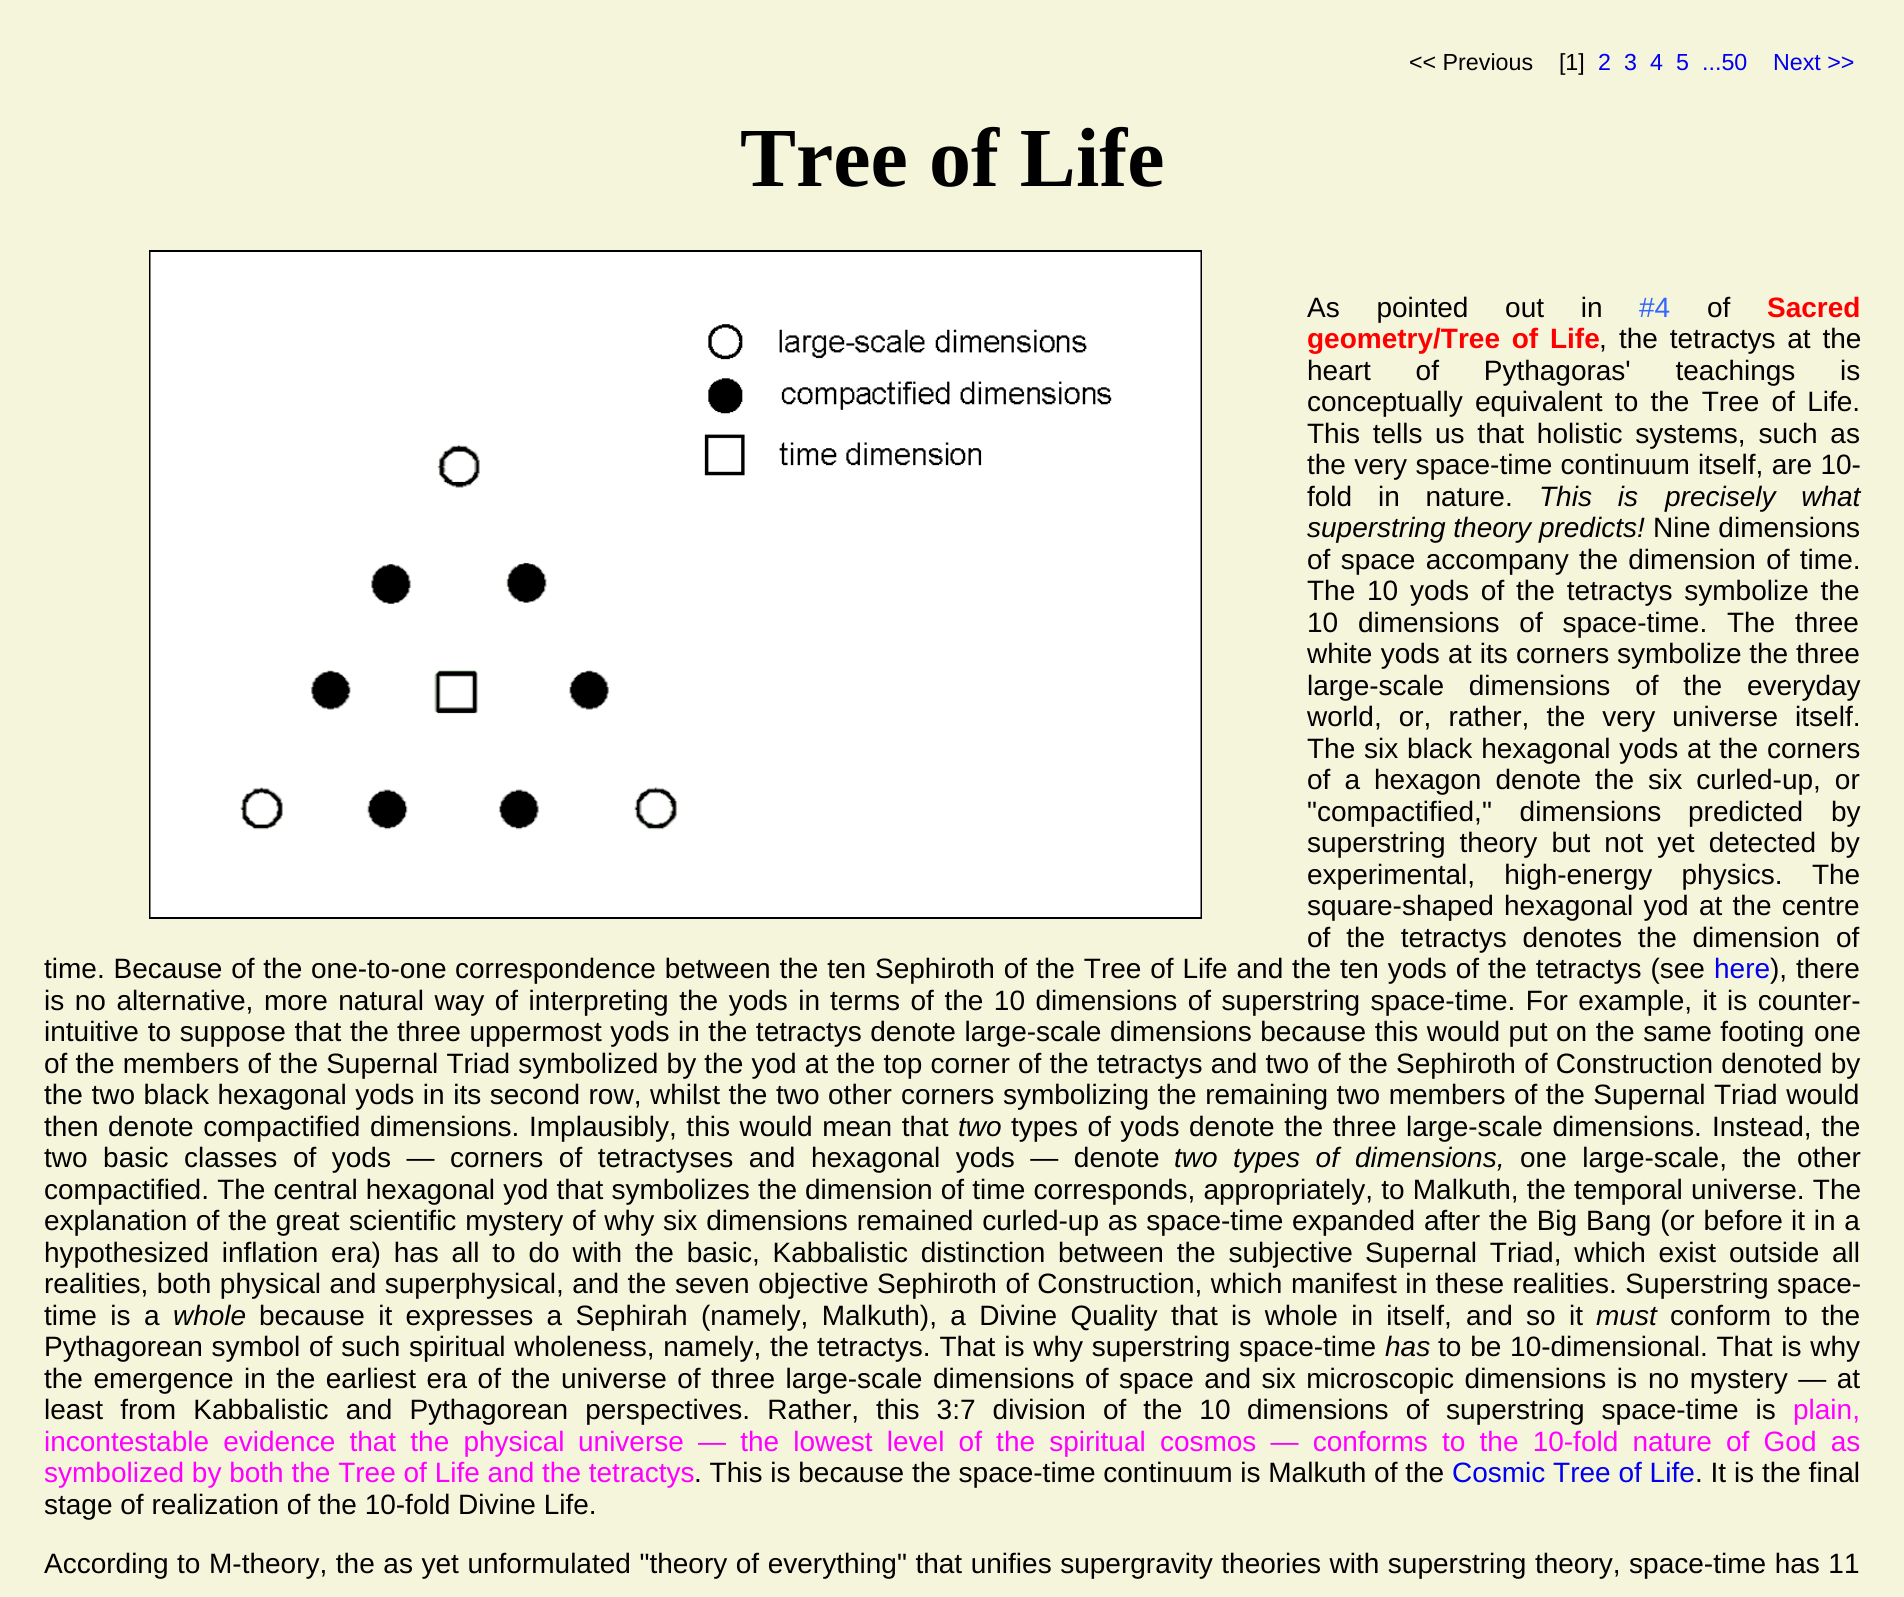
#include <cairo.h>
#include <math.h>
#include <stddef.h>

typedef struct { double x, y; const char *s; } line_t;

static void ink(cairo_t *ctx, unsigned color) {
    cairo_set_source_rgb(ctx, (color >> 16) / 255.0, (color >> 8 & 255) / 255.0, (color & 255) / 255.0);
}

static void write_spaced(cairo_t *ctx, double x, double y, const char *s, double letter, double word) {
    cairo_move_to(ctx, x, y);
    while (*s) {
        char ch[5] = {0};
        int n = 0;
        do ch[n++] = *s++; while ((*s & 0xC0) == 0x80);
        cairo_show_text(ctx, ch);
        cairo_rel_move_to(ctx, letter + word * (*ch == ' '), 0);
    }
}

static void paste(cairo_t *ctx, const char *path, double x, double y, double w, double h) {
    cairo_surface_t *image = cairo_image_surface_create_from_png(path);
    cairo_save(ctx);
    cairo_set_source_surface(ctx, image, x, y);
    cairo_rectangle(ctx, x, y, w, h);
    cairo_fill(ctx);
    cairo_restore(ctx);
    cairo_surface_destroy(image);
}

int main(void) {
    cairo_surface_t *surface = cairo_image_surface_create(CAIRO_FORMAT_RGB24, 1904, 1597);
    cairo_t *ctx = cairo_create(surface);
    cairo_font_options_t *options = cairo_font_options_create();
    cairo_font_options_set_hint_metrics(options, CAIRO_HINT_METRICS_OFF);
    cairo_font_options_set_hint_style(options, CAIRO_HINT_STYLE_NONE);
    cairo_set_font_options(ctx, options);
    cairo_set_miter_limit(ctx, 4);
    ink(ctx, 0xF5F5DC);
    cairo_paint(ctx);
    cairo_select_font_face(ctx, "Liberation Sans", CAIRO_FONT_SLANT_NORMAL, CAIRO_FONT_WEIGHT_NORMAL);
    cairo_set_font_size(ctx, 23.25);
    ink(ctx, 0x000000);
    cairo_move_to(ctx, 1409, 70);
    cairo_show_text(ctx, "<< Previous    [1]");
    ink(ctx, 0x0000EE);
    {
        static const line_t items[] = {
            {1598, 70, "2"},
            {1624, 70, "3"},
            {1650, 70, "4"},
            {1676, 70, "5"},
            {1702, 70, "...50"},
            {1773, 70, "Next >>"},
        };
        for (size_t i = 0; i < sizeof items / sizeof *items; i++) {
            cairo_move_to(ctx, items[i].x, items[i].y);
            cairo_show_text(ctx, items[i].s);
        }
    }
    cairo_select_font_face(ctx, "Liberation Serif", CAIRO_FONT_SLANT_NORMAL, CAIRO_FONT_WEIGHT_BOLD);
    cairo_set_font_size(ctx, 84);
    ink(ctx, 0x000000);
    cairo_move_to(ctx, 740, 186);
    cairo_show_text(ctx, "Tree of Life");
    cairo_rectangle(ctx, 150, 251, 1051, 667);
    cairo_stroke(ctx);
    paste(ctx, "media/1.png", 150, 252, 1051, 665);
    cairo_select_font_face(ctx, "Liberation Sans", CAIRO_FONT_SLANT_NORMAL, CAIRO_FONT_WEIGHT_NORMAL);
    cairo_set_font_size(ctx, 28);
    write_spaced(ctx, 1307, 317, "As pointed out in", 0, 29);
    ink(ctx, 0x3366FF);
    cairo_move_to(ctx, 1639, 317);
    cairo_show_text(ctx, "#4");
    ink(ctx, 0x000000);
    cairo_move_to(ctx, 1707, 317);
    cairo_show_text(ctx, "of");
    cairo_select_font_face(ctx, "Liberation Sans", CAIRO_FONT_SLANT_NORMAL, CAIRO_FONT_WEIGHT_BOLD);
    ink(ctx, 0xFF0000);
    cairo_move_to(ctx, 1767, 317);
    cairo_show_text(ctx, "Sacred");
    write_spaced(ctx, 1307, 348, "geometry/Tree of Life", 0, 4);
    cairo_select_font_face(ctx, "Liberation Sans", CAIRO_FONT_SLANT_NORMAL, CAIRO_FONT_WEIGHT_NORMAL);
    ink(ctx, 0x000000);
    cairo_move_to(ctx, 1599, 348);
    cairo_show_text(ctx, ",");
    write_spaced(ctx, 1619, 348, "the tetractys at the", 0, 4);
    write_spaced(ctx, 1307, 380, "heart of Pythagoras' teachings is", 0, 37);
    write_spaced(ctx, 1307, 411, "conceptually equivalent to the Tree of Life.", 0, 4.5);
    write_spaced(ctx, 1307, 443, "This tells", 0, 5);
    write_spaced(ctx, 1435, 443, "us that holistic systems, such as", 0, 5);
    write_spaced(ctx, 1307, 474, "the very space-time continuum itself, are 10-", 0, 0.5);
    write_spaced(ctx, 1307, 506, "fold in nature.", 0, 18);
    cairo_select_font_face(ctx, "Liberation Sans", CAIRO_FONT_SLANT_ITALIC, CAIRO_FONT_WEIGHT_NORMAL);
    write_spaced(ctx, 1539, 506, "This is", 0, 18);
    write_spaced(ctx, 1665, 506, "precisely what", 0, 18);
    cairo_move_to(ctx, 1307, 537);
    cairo_show_text(ctx, "superstring theory predicts!");
    cairo_select_font_face(ctx, "Liberation Sans", CAIRO_FONT_SLANT_NORMAL, CAIRO_FONT_WEIGHT_NORMAL);
    cairo_move_to(ctx, 1653, 537);
    cairo_show_text(ctx, "Nine dimensions");
    write_spaced(ctx, 1307, 569, "of space accompany the dimension of time.", 0, 2.5);
    write_spaced(ctx, 1307, 600, "The 10 yods of the tetractys symbolize the", 0, 4);
    write_spaced(ctx, 1307, 632, "10 dimensions of space-time. The three", 0, 12);
    write_spaced(ctx, 1307, 663, "white yods at its corners", 0, 0.5);
    cairo_move_to(ctx, 1617, 663);
    cairo_show_text(ctx, "symbolize the three");
    write_spaced(ctx, 1307, 695, "large-scale dimensions of the everyday", 0, 17);
    write_spaced(ctx, 1307, 726, "world, or, rather, the very universe itself.", 0, 9.25);
    write_spaced(ctx, 1307, 758, "The six", 0, 1);
    write_spaced(ctx, 1407, 758, "black hexagonal yods at the corners", 0, 1);
    write_spaced(ctx, 1307, 789, "of a hexagon denote the six curled-up, or", 0, 6.25);
    write_spaced(ctx, 1307, 821, "\"compactified,\" dimensions", 0, 20);
    write_spaced(ctx, 1688, 821, "predicted by", 0, 20);
    write_spaced(ctx, 1307, 852, "superstring theory but not yet detected by", 0, 6.25);
    write_spaced(ctx, 1307, 884, "experimental, high-energy physics. The", 0, 21.5);
    cairo_move_to(ctx, 1307, 915);
    cairo_show_text(ctx, "square-shaped");
    write_spaced(ctx, 1504, 915, "hexagonal yod at the centre", 0, 2.5);
    write_spaced(ctx, 1307, 947, "of the tetractys denotes the dimension of", 0, 8);
    write_spaced(ctx, 44, 978, "time. Because of the one-to-one", 0, 1);
    write_spaced(ctx, 455, 978, "correspondence between the ten Sephiroth of the Tree of Life and the ten yods of the tetractys (see", 0, 1.1);
    ink(ctx, 0x0000EE);
    cairo_move_to(ctx, 1714, 978);
    cairo_show_text(ctx, "here");
    ink(ctx, 0x000000);
    write_spaced(ctx, 1770, 978, "), there", 0, 1);
    write_spaced(ctx, 44, 1010, "is no alternative, more natural way of interpreting the yods in", 0, 2.75);
    write_spaced(ctx, 830, 1010, "terms of the 10 dimensions of superstring space-time. For example, it is counter-", 0, 2.75);
    write_spaced(ctx, 44, 1041, "intuitive to suppose that the", 0, 1);
    write_spaced(ctx, 397, 1041, "three uppermost yods in the tetractys denote large-scale dimensions because this would put on the same footing", 0, 0.8);
    cairo_move_to(ctx, 1814, 1041);
    cairo_show_text(ctx, "one");
    write_spaced(ctx, 44, 1073, "of the members of the Supernal Triad symbolized by the yod at the top corner of the tetractys and two of the", 0, 0.4);
    write_spaced(ctx, 1396, 1073, "Sephiroth of Construction denoted by", 0, 0.5);
    write_spaced(ctx, 44, 1104, "the two black hexagonal yods in its second row, whilst the two other", 0, 0.75);
    write_spaced(ctx, 901, 1104, "corners symbolizing the remaining two members of the Supernal Triad would", 0, 0.75);
    write_spaced(ctx, 44, 1136, "then denote compactified dimensions.", 0, 1.75);
    write_spaced(ctx, 529, 1136, "Implausibly, this would mean that", 0, 1.75);
    cairo_select_font_face(ctx, "Liberation Sans", CAIRO_FONT_SLANT_ITALIC, CAIRO_FONT_WEIGHT_NORMAL);
    cairo_move_to(ctx, 958, 1136);
    cairo_show_text(ctx, "two");
    cairo_select_font_face(ctx, "Liberation Sans", CAIRO_FONT_SLANT_NORMAL, CAIRO_FONT_WEIGHT_NORMAL);
    write_spaced(ctx, 1011, 1136, "types of yods denote the three large-scale dimensions.", 0, 1.75);
    write_spaced(ctx, 1712, 1136, "Instead, the", 0, 2);
    write_spaced(ctx, 44, 1167, "two basic classes of yods — corners of tetractyses and hexagonal yods — denote", 0, 7.75);
    cairo_select_font_face(ctx, "Liberation Sans", CAIRO_FONT_SLANT_ITALIC, CAIRO_FONT_WEIGHT_NORMAL);
    write_spaced(ctx, 1174, 1167, "two types of", 0, 7.75);
    cairo_move_to(ctx, 1355, 1167);
    cairo_show_text(ctx, "dimensions,");
    cairo_select_font_face(ctx, "Liberation Sans", CAIRO_FONT_SLANT_NORMAL, CAIRO_FONT_WEIGHT_NORMAL);
    write_spaced(ctx, 1520, 1167, "one large-scale, the other", 0, 7.75);
    write_spaced(ctx, 44, 1199, "compactified. The central hexagonal yod that symbolizes the", 0, 0.4);
    write_spaced(ctx, 805, 1199, "dimension of time corresponds, appropriately, to Malkuth, the temporal universe. The", 0, 0.4);
    write_spaced(ctx, 44, 1230, "explanation of the great", 0, 1);
    write_spaced(ctx, 349, 1230, "scientific mystery of why six dimensions remained curled-up as space-time expanded after the Big Bang (or before", 0, 1.1);
    write_spaced(ctx, 1791, 1230, "it in a", 0, 1);
    write_spaced(ctx, 44, 1262, "hypothesized inflation era) has all to do with the basic, Kabbalistic distinction between the subjective", 0, 5);
    write_spaced(ctx, 1365, 1262, "Supernal Triad, which exist outside all", 0, 5);
    write_spaced(ctx, 44, 1293, "realities, both physical and superphysical, and the seven objective", 0, 0.75);
    write_spaced(ctx, 877, 1293, "Sephiroth of Construction, which manifest in these realities. Superstring space-", 0, 0.75);
    write_spaced(ctx, 44, 1325, "time is a", 0, 5.6);
    cairo_select_font_face(ctx, "Liberation Sans", CAIRO_FONT_SLANT_ITALIC, CAIRO_FONT_WEIGHT_NORMAL);
    cairo_move_to(ctx, 173, 1325);
    cairo_show_text(ctx, "whole");
    cairo_select_font_face(ctx, "Liberation Sans", CAIRO_FONT_SLANT_NORMAL, CAIRO_FONT_WEIGHT_NORMAL);
    write_spaced(ctx, 259, 1325, "because it expresses a Sephirah (namely, Malkuth), a Divine Quality that is whole in itself,", 0, 5.6);
    write_spaced(ctx, 1466, 1325, "and so it", 0, 5.6);
    cairo_select_font_face(ctx, "Liberation Sans", CAIRO_FONT_SLANT_ITALIC, CAIRO_FONT_WEIGHT_NORMAL);
    cairo_move_to(ctx, 1596, 1325);
    cairo_show_text(ctx, "must");
    cairo_select_font_face(ctx, "Liberation Sans", CAIRO_FONT_SLANT_NORMAL, CAIRO_FONT_WEIGHT_NORMAL);
    write_spaced(ctx, 1670, 1325, "conform to the", 0, 5.6);
    write_spaced(ctx, 44, 1356, "Pythagorean symbol of such spiritual wholeness, namely, the", 0, 1);
    write_spaced(ctx, 817, 1356, "tetractys. That is why superstring space-time", 0, 1);
    cairo_select_font_face(ctx, "Liberation Sans", CAIRO_FONT_SLANT_ITALIC, CAIRO_FONT_WEIGHT_NORMAL);
    cairo_move_to(ctx, 1385, 1356);
    cairo_show_text(ctx, "has");
    cairo_select_font_face(ctx, "Liberation Sans", CAIRO_FONT_SLANT_NORMAL, CAIRO_FONT_WEIGHT_NORMAL);
    write_spaced(ctx, 1438, 1356, "to be 10-dimensional. That is why", 0, 1);
    {
        static const line_t items[] = {
            {44, 1388, "the emergence"},
            {244, 1388, "in the earliest era of the universe of three large-scale dimensions of space and six microscopic dimensions is"},
            {1648, 1388, "no mystery — at"},
        };
        for (size_t i = 0; i < sizeof items / sizeof *items; i++) {
            write_spaced(ctx, items[i].x, items[i].y, items[i].s, 0, 2.75);
        }
    }
    write_spaced(ctx, 44, 1419, "least from Kabbalistic and Pythagorean perspectives. Rather, this 3:7 division of the 10", 0, 9.25);
    write_spaced(ctx, 1247, 1419, "dimensions of superstring space-time is", 0, 9.25);
    ink(ctx, 0xFF00FF);
    cairo_move_to(ctx, 1793, 1419);
    cairo_show_text(ctx, "plain,");
    write_spaced(ctx, 44, 1451, "incontestable evidence that the physical", 0, 6.4);
    write_spaced(ctx, 578, 1451, "universe — the lowest level of the spiritual cosmos — conforms to the 10-fold nature of God as", 0, 6.4);
    cairo_move_to(ctx, 44, 1482);
    cairo_show_text(ctx, "symbolized by both the Tree of Life and the tetractys");
    ink(ctx, 0x000000);
    cairo_move_to(ctx, 694, 1482);
    cairo_show_text(ctx, ". This is because the space-time continuum is Malkuth of the");
    ink(ctx, 0x0000EE);
    cairo_move_to(ctx, 1452, 1482);
    cairo_show_text(ctx, "Cosmic Tree of Life");
    ink(ctx, 0x000000);
    cairo_move_to(ctx, 1695, 1482);
    cairo_show_text(ctx, ". It is the final");
    cairo_move_to(ctx, 44, 1514);
    cairo_show_text(ctx, "stage of realization of the 10-fold Divine Life.");
    write_spaced(ctx, 44, 1573, "According to M-theory, the as yet unformulated \"theory of everything\" that unifies supergravity theories with superstring theory, space-time has 11", 0, 0.8);
    cairo_surface_write_to_png(surface, "image.png");
    cairo_font_options_destroy(options);
    cairo_destroy(ctx);
    cairo_surface_destroy(surface);
    return 0;
}
